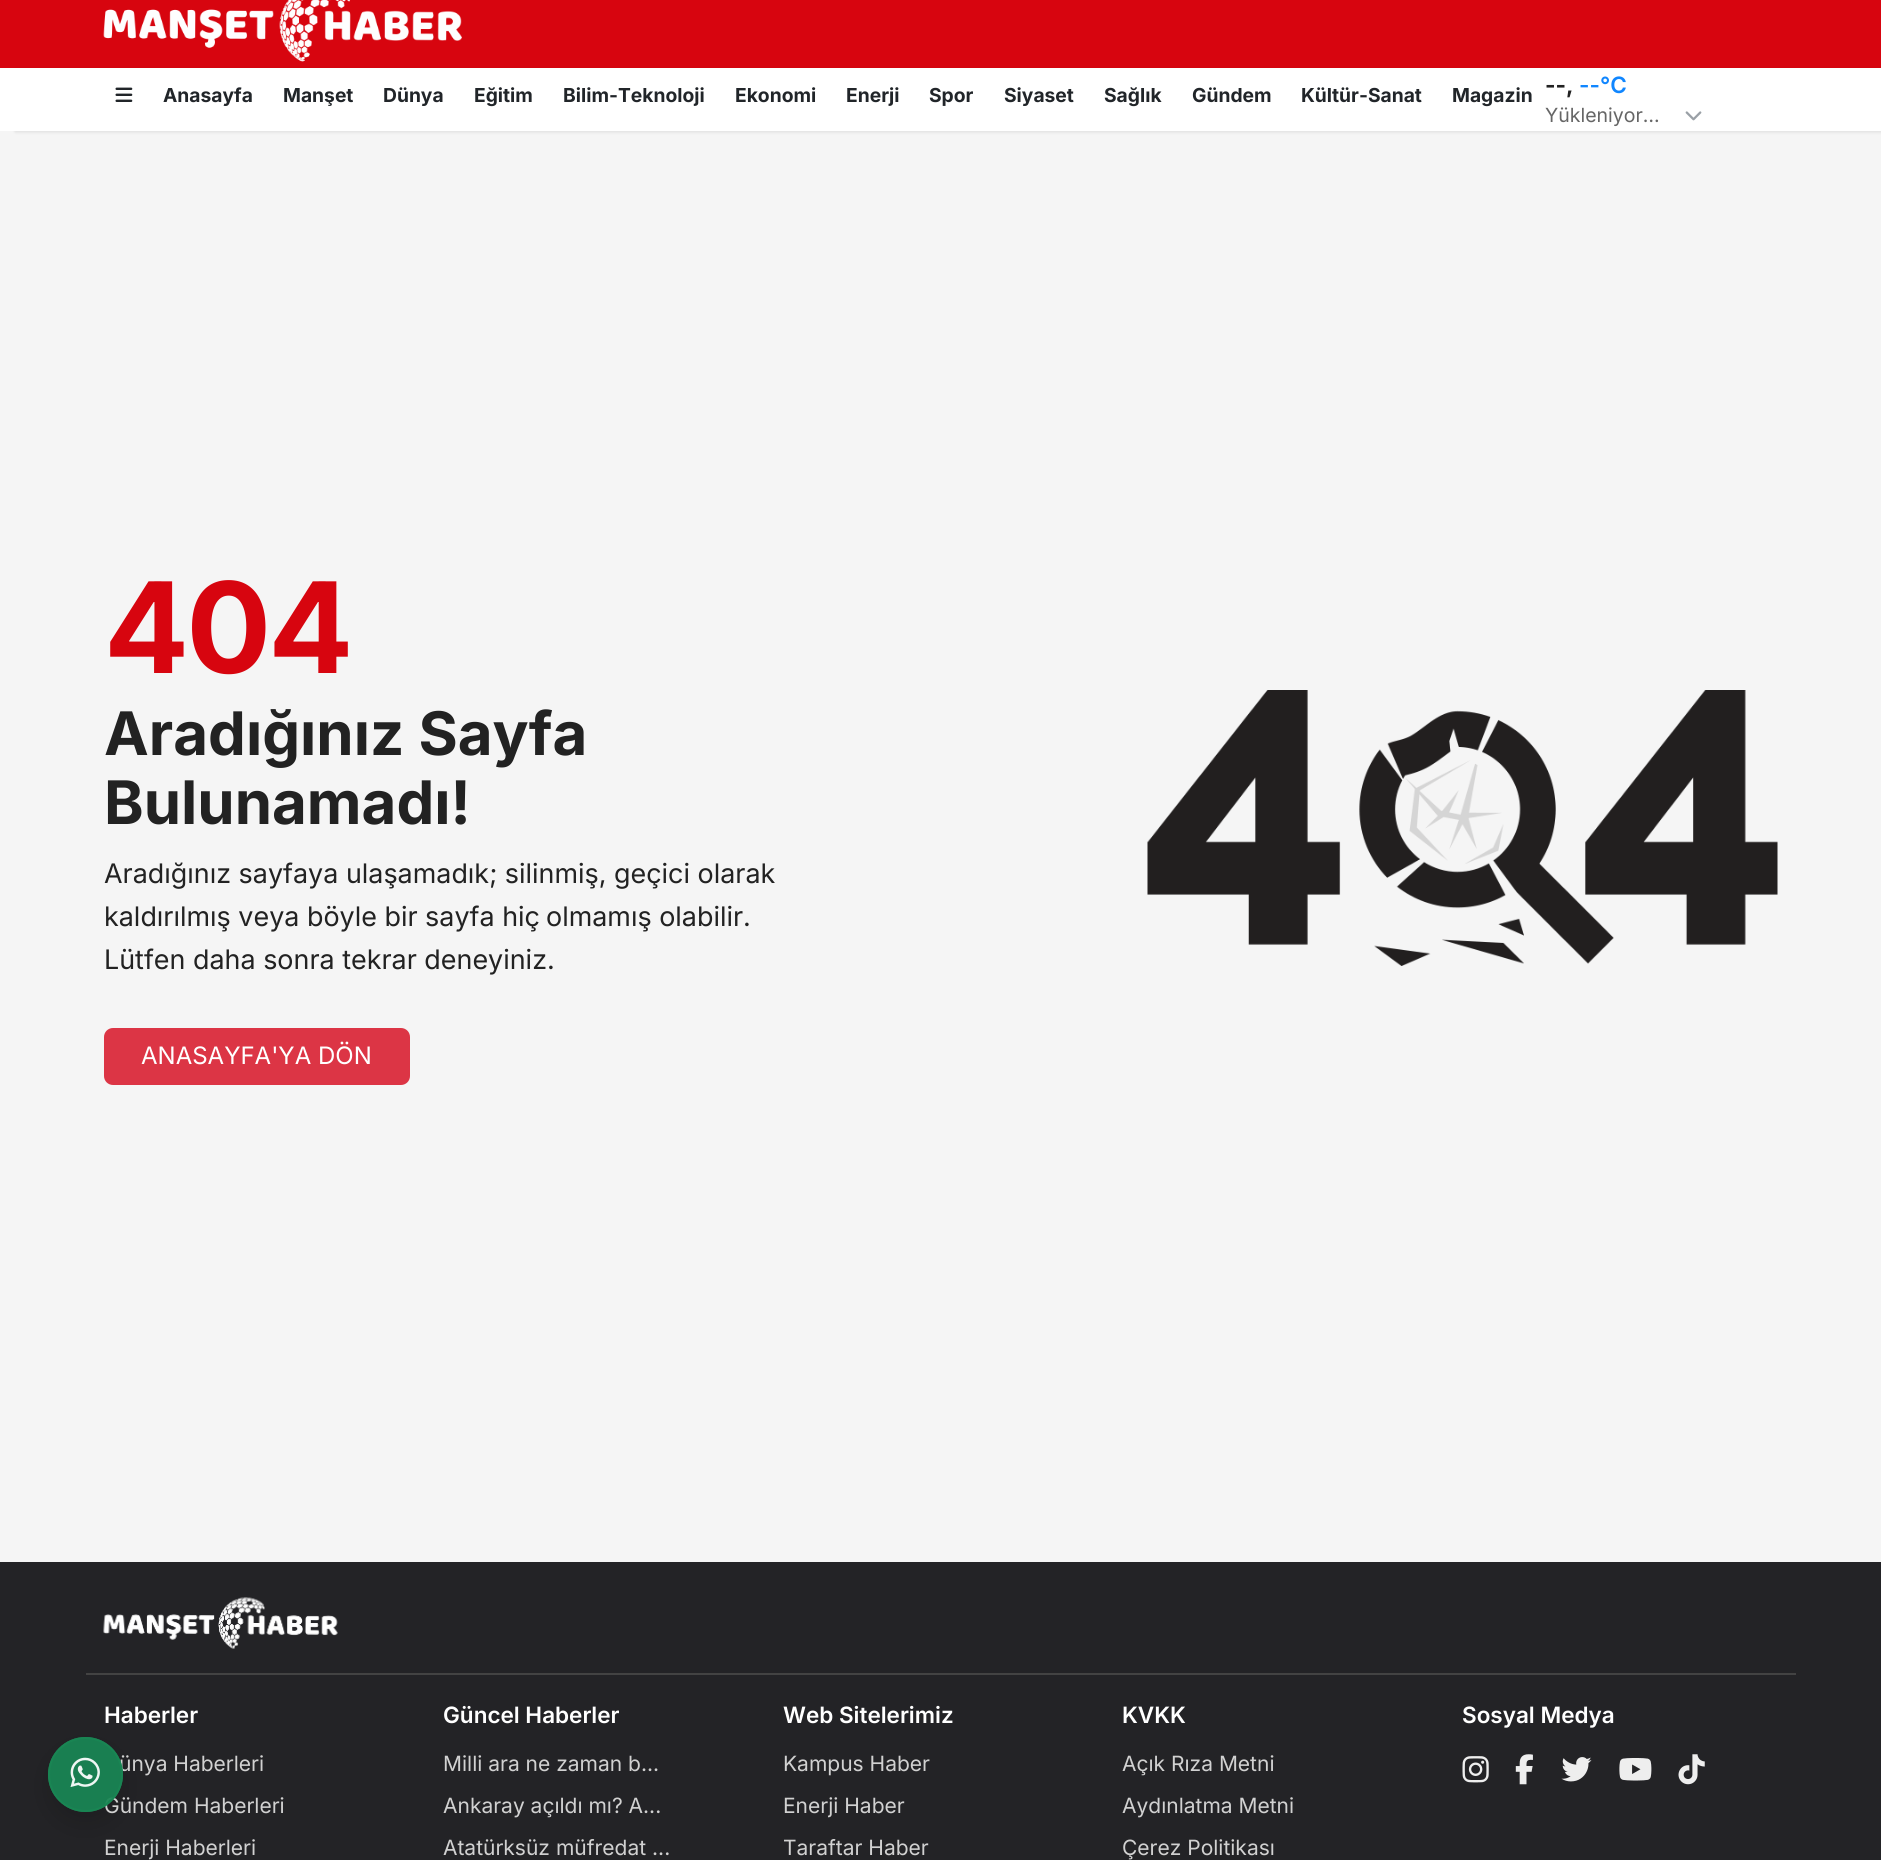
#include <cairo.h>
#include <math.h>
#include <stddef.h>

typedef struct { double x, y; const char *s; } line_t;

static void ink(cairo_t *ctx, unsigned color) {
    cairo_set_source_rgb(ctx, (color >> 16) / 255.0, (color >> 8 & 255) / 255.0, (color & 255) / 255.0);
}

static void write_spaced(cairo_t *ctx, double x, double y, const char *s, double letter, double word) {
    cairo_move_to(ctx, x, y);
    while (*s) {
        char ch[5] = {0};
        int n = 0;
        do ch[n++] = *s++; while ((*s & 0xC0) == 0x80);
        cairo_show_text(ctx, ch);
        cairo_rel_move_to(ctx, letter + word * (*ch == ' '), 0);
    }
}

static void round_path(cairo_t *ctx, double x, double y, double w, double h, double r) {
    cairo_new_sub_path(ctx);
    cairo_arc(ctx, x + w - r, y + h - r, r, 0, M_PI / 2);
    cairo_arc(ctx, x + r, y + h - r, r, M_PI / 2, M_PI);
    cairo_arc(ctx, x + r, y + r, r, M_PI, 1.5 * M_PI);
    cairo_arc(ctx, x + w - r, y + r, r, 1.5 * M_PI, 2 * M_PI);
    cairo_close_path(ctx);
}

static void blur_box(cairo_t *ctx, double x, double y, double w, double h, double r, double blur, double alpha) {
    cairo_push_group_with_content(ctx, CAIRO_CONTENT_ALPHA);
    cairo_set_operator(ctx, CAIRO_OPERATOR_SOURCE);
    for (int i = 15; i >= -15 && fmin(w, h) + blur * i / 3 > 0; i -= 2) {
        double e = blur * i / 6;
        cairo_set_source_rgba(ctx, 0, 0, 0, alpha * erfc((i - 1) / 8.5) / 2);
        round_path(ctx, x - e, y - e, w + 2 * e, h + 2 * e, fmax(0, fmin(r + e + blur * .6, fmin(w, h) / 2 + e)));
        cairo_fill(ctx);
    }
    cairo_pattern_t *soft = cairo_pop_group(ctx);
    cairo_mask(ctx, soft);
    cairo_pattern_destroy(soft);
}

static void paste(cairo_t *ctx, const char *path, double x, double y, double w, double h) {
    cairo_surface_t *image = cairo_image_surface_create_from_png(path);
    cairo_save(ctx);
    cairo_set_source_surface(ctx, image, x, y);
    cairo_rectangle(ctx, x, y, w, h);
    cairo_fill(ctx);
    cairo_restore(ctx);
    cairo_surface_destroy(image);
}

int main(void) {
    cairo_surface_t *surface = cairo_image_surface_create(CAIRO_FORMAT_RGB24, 1881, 1860);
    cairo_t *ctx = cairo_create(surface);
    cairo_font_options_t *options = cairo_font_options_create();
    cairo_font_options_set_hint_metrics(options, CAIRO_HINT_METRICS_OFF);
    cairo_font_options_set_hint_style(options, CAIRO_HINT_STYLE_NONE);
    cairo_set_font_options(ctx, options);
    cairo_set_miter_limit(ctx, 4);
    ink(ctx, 0xF5F5F5);
    cairo_paint(ctx);
    ink(ctx, 0xD7050F);
    cairo_rectangle(ctx, 0, 0, 1881, 68);
    cairo_fill(ctx);
    paste(ctx, "media/1.png", 103, 0, 359, 62);
    ink(ctx, 0x000000);
    blur_box(ctx, 15, 69, 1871, 63, 0, 1.5, 0.1);
    ink(ctx, 0xFFFFFF);
    cairo_rectangle(ctx, 0, 68, 1881, 63);
    cairo_fill(ctx);
    paste(ctx, "media/2.png", 115, 87, 18, 15);
    cairo_select_font_face(ctx, "Inter", CAIRO_FONT_SLANT_NORMAL, CAIRO_FONT_WEIGHT_BOLD);
    cairo_set_font_size(ctx, 19.25);
    ink(ctx, 0x212529);
    {
        static const line_t items[] = {
            {163, 102, "Anasayfa"},
            {283, 102, "Manşet"},
            {383, 102, "Dünya"},
            {474, 102, "Eğitim"},
            {563, 102, "Bilim-Teknoloji"},
            {735, 102, "Ekonomi"},
            {846, 102, "Enerji"},
            {929, 102, "Spor"},
            {1004, 102, "Siyaset"},
            {1104, 102, "Sağlık"},
            {1192, 102, "Gündem"},
            {1301, 102, "Kültür-Sanat"},
            {1452, 102, "Magazin"},
        };
        for (size_t i = 0; i < sizeof items / sizeof *items; i++) {
            cairo_move_to(ctx, items[i].x, items[i].y);
            cairo_show_text(ctx, items[i].s);
        }
    }
    cairo_set_font_size(ctx, 22.5);
    ink(ctx, 0x222222);
    cairo_move_to(ctx, 1545, 93);
    cairo_show_text(ctx, "--,");
    cairo_select_font_face(ctx, "Inter SemiBold", CAIRO_FONT_SLANT_NORMAL, CAIRO_FONT_WEIGHT_NORMAL);
    ink(ctx, 0x1086FF);
    cairo_move_to(ctx, 1579, 93);
    cairo_show_text(ctx, "--°C");
    cairo_select_font_face(ctx, "Inter", CAIRO_FONT_SLANT_NORMAL, CAIRO_FONT_WEIGHT_NORMAL);
    cairo_set_font_size(ctx, 19.5);
    ink(ctx, 0x666666);
    cairo_move_to(ctx, 1545, 122);
    cairo_show_text(ctx, "Yükleniyor…");
    paste(ctx, "media/3.png", 1685, 111, 17, 10);
    cairo_select_font_face(ctx, "Inter", CAIRO_FONT_SLANT_NORMAL, CAIRO_FONT_WEIGHT_BOLD);
    cairo_set_font_size(ctx, 126);
    ink(ctx, 0xD7050F);
    write_spaced(ctx, 104, 673, "404", -3, 0);
    cairo_set_font_size(ctx, 60);
    ink(ctx, 0x222222);
    cairo_move_to(ctx, 104, 755);
    cairo_show_text(ctx, "Aradığınız Sayfa");
    cairo_move_to(ctx, 104, 824);
    cairo_show_text(ctx, "Bulunamadı!");
    cairo_select_font_face(ctx, "Inter", CAIRO_FONT_SLANT_NORMAL, CAIRO_FONT_WEIGHT_NORMAL);
    cairo_set_font_size(ctx, 26.9);
    {
        static const line_t items[] = {
            {104, 883, "Aradığınız sayfaya ulaşamadık; silinmiş, geçici olarak"},
            {104, 926, "kaldırılmış veya böyle bir sayfa hiç"},
            {546, 926, "olmamış olabilir."},
            {104, 969, "Lütfen daha sonra tekrar deneyiniz."},
        };
        for (size_t i = 0; i < sizeof items / sizeof *items; i++) {
            cairo_move_to(ctx, items[i].x, items[i].y);
            cairo_show_text(ctx, items[i].s);
        }
    }
    ink(ctx, 0xDC3545);
    round_path(ctx, 105, 1029, 304, 55, 8);
    cairo_fill_preserve(ctx);
    cairo_stroke(ctx);
    cairo_set_font_size(ctx, 24);
    ink(ctx, 0xFFFFFF);
    cairo_move_to(ctx, 141, 1064);
    cairo_show_text(ctx, "ANASAYFA'YA DÖN");
    paste(ctx, "media/4.png", 1147, 690, 631, 276);
    ink(ctx, 0x232326);
    cairo_rectangle(ctx, 0, 1562, 1881, 298);
    cairo_fill(ctx);
    cairo_save(ctx);
    cairo_set_fill_rule(ctx, CAIRO_FILL_RULE_EVEN_ODD);
    cairo_new_path(ctx);
    cairo_move_to(ctx, 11, 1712);
    cairo_line_to(ctx, 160, 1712);
    cairo_line_to(ctx, 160, 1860);
    cairo_line_to(ctx, 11, 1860);
    cairo_close_path(ctx);
    cairo_move_to(ctx, 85.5, 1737);
    cairo_curve_to(ctx, 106, 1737, 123, 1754, 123, 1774.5);
    cairo_curve_to(ctx, 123, 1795, 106, 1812, 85.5, 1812);
    cairo_curve_to(ctx, 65, 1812, 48, 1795, 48, 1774.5);
    cairo_curve_to(ctx, 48, 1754, 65, 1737, 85.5, 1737);
    cairo_close_path(ctx);
    cairo_clip(ctx);
    ink(ctx, 0x000000);
    blur_box(ctx, 48, 1749, 75, 75, 37.5, 12, 0.14);
    cairo_restore(ctx);
    cairo_set_font_size(ctx, 21);
    ink(ctx, 0xD1D1D1);
    cairo_move_to(ctx, 119, 1771);
    cairo_show_text(ctx, "ünya Haberleri");
    cairo_move_to(ctx, 104, 1813);
    cairo_show_text(ctx, "Gündem Haberleri");
    cairo_set_source_rgba(ctx, 0.098, 0.529, 0.329, 0.93);
    cairo_new_path(ctx);
    cairo_arc(ctx, 85.5, 1774.5, 37.5, 0, 2 * M_PI);
    cairo_fill(ctx);
    cairo_arc(ctx, 85.5, 1774.5, 36.5, 0, 2 * M_PI);
    cairo_stroke(ctx);
    paste(ctx, "media/5.png", 70, 1757, 30, 30);
    ink(ctx, 0x434343);
    cairo_rectangle(ctx, 86, 1673, 1710, 2);
    cairo_fill(ctx);
    paste(ctx, "media/6.png", 103, 1597, 235, 52);
    cairo_select_font_face(ctx, "Inter SemiBold", CAIRO_FONT_SLANT_NORMAL, CAIRO_FONT_WEIGHT_NORMAL);
    cairo_set_font_size(ctx, 22.5);
    ink(ctx, 0xFFFFFF);
    cairo_move_to(ctx, 104, 1723);
    cairo_show_text(ctx, "Haberler");
    cairo_select_font_face(ctx, "Inter", CAIRO_FONT_SLANT_NORMAL, CAIRO_FONT_WEIGHT_NORMAL);
    cairo_set_font_size(ctx, 21);
    ink(ctx, 0xD1D1D1);
    cairo_move_to(ctx, 104, 1855);
    cairo_show_text(ctx, "Enerji Haberleri");
    cairo_select_font_face(ctx, "Inter SemiBold", CAIRO_FONT_SLANT_NORMAL, CAIRO_FONT_WEIGHT_NORMAL);
    cairo_set_font_size(ctx, 22.5);
    ink(ctx, 0xFFFFFF);
    cairo_move_to(ctx, 443, 1723);
    cairo_show_text(ctx, "Güncel Haberler");
    cairo_select_font_face(ctx, "Inter", CAIRO_FONT_SLANT_NORMAL, CAIRO_FONT_WEIGHT_NORMAL);
    cairo_set_font_size(ctx, 21);
    ink(ctx, 0xD1D1D1);
    {
        static const line_t items[] = {
            {443, 1771, "Milli ara ne zaman b..."},
            {443, 1813, "Ankaray açıldı mı? A..."},
            {443, 1855, "Atatürksüz müfredat ..."},
        };
        for (size_t i = 0; i < sizeof items / sizeof *items; i++) {
            cairo_move_to(ctx, items[i].x, items[i].y);
            cairo_show_text(ctx, items[i].s);
        }
    }
    cairo_select_font_face(ctx, "Inter SemiBold", CAIRO_FONT_SLANT_NORMAL, CAIRO_FONT_WEIGHT_NORMAL);
    cairo_set_font_size(ctx, 22.5);
    ink(ctx, 0xFFFFFF);
    cairo_move_to(ctx, 783, 1723);
    cairo_show_text(ctx, "Web Sitelerimiz");
    cairo_select_font_face(ctx, "Inter", CAIRO_FONT_SLANT_NORMAL, CAIRO_FONT_WEIGHT_NORMAL);
    cairo_set_font_size(ctx, 21);
    ink(ctx, 0xD1D1D1);
    {
        static const line_t items[] = {
            {783, 1771, "Kampus Haber"},
            {783, 1813, "Enerji Haber"},
            {783, 1855, "Taraftar Haber"},
        };
        for (size_t i = 0; i < sizeof items / sizeof *items; i++) {
            cairo_move_to(ctx, items[i].x, items[i].y);
            cairo_show_text(ctx, items[i].s);
        }
    }
    cairo_select_font_face(ctx, "Inter SemiBold", CAIRO_FONT_SLANT_NORMAL, CAIRO_FONT_WEIGHT_NORMAL);
    cairo_set_font_size(ctx, 22.5);
    ink(ctx, 0xFFFFFF);
    cairo_move_to(ctx, 1122, 1723);
    cairo_show_text(ctx, "KVKK");
    cairo_select_font_face(ctx, "Inter", CAIRO_FONT_SLANT_NORMAL, CAIRO_FONT_WEIGHT_NORMAL);
    cairo_set_font_size(ctx, 21);
    ink(ctx, 0xD1D1D1);
    {
        static const line_t items[] = {
            {1122, 1771, "Açık Rıza Metni"},
            {1122, 1813, "Aydınlatma Metni"},
            {1122, 1855, "Çerez Politikası"},
        };
        for (size_t i = 0; i < sizeof items / sizeof *items; i++) {
            cairo_move_to(ctx, items[i].x, items[i].y);
            cairo_show_text(ctx, items[i].s);
        }
    }
    cairo_select_font_face(ctx, "Inter SemiBold", CAIRO_FONT_SLANT_NORMAL, CAIRO_FONT_WEIGHT_NORMAL);
    cairo_set_font_size(ctx, 22.5);
    ink(ctx, 0xFFFFFF);
    cairo_move_to(ctx, 1462, 1723);
    cairo_show_text(ctx, "Sosyal Medya");
    paste(ctx, "media/7.png", 1462, 1756, 27, 27);
    paste(ctx, "media/8.png", 1515, 1754, 18, 31);
    paste(ctx, "media/9.png", 1561, 1757, 31, 25);
    paste(ctx, "media/10.png", 1619, 1758, 33, 23);
    paste(ctx, "media/11.png", 1678, 1754, 27, 31);
    cairo_surface_write_to_png(surface, "image.png");
    cairo_font_options_destroy(options);
    cairo_destroy(ctx);
    cairo_surface_destroy(surface);
    return 0;
}
